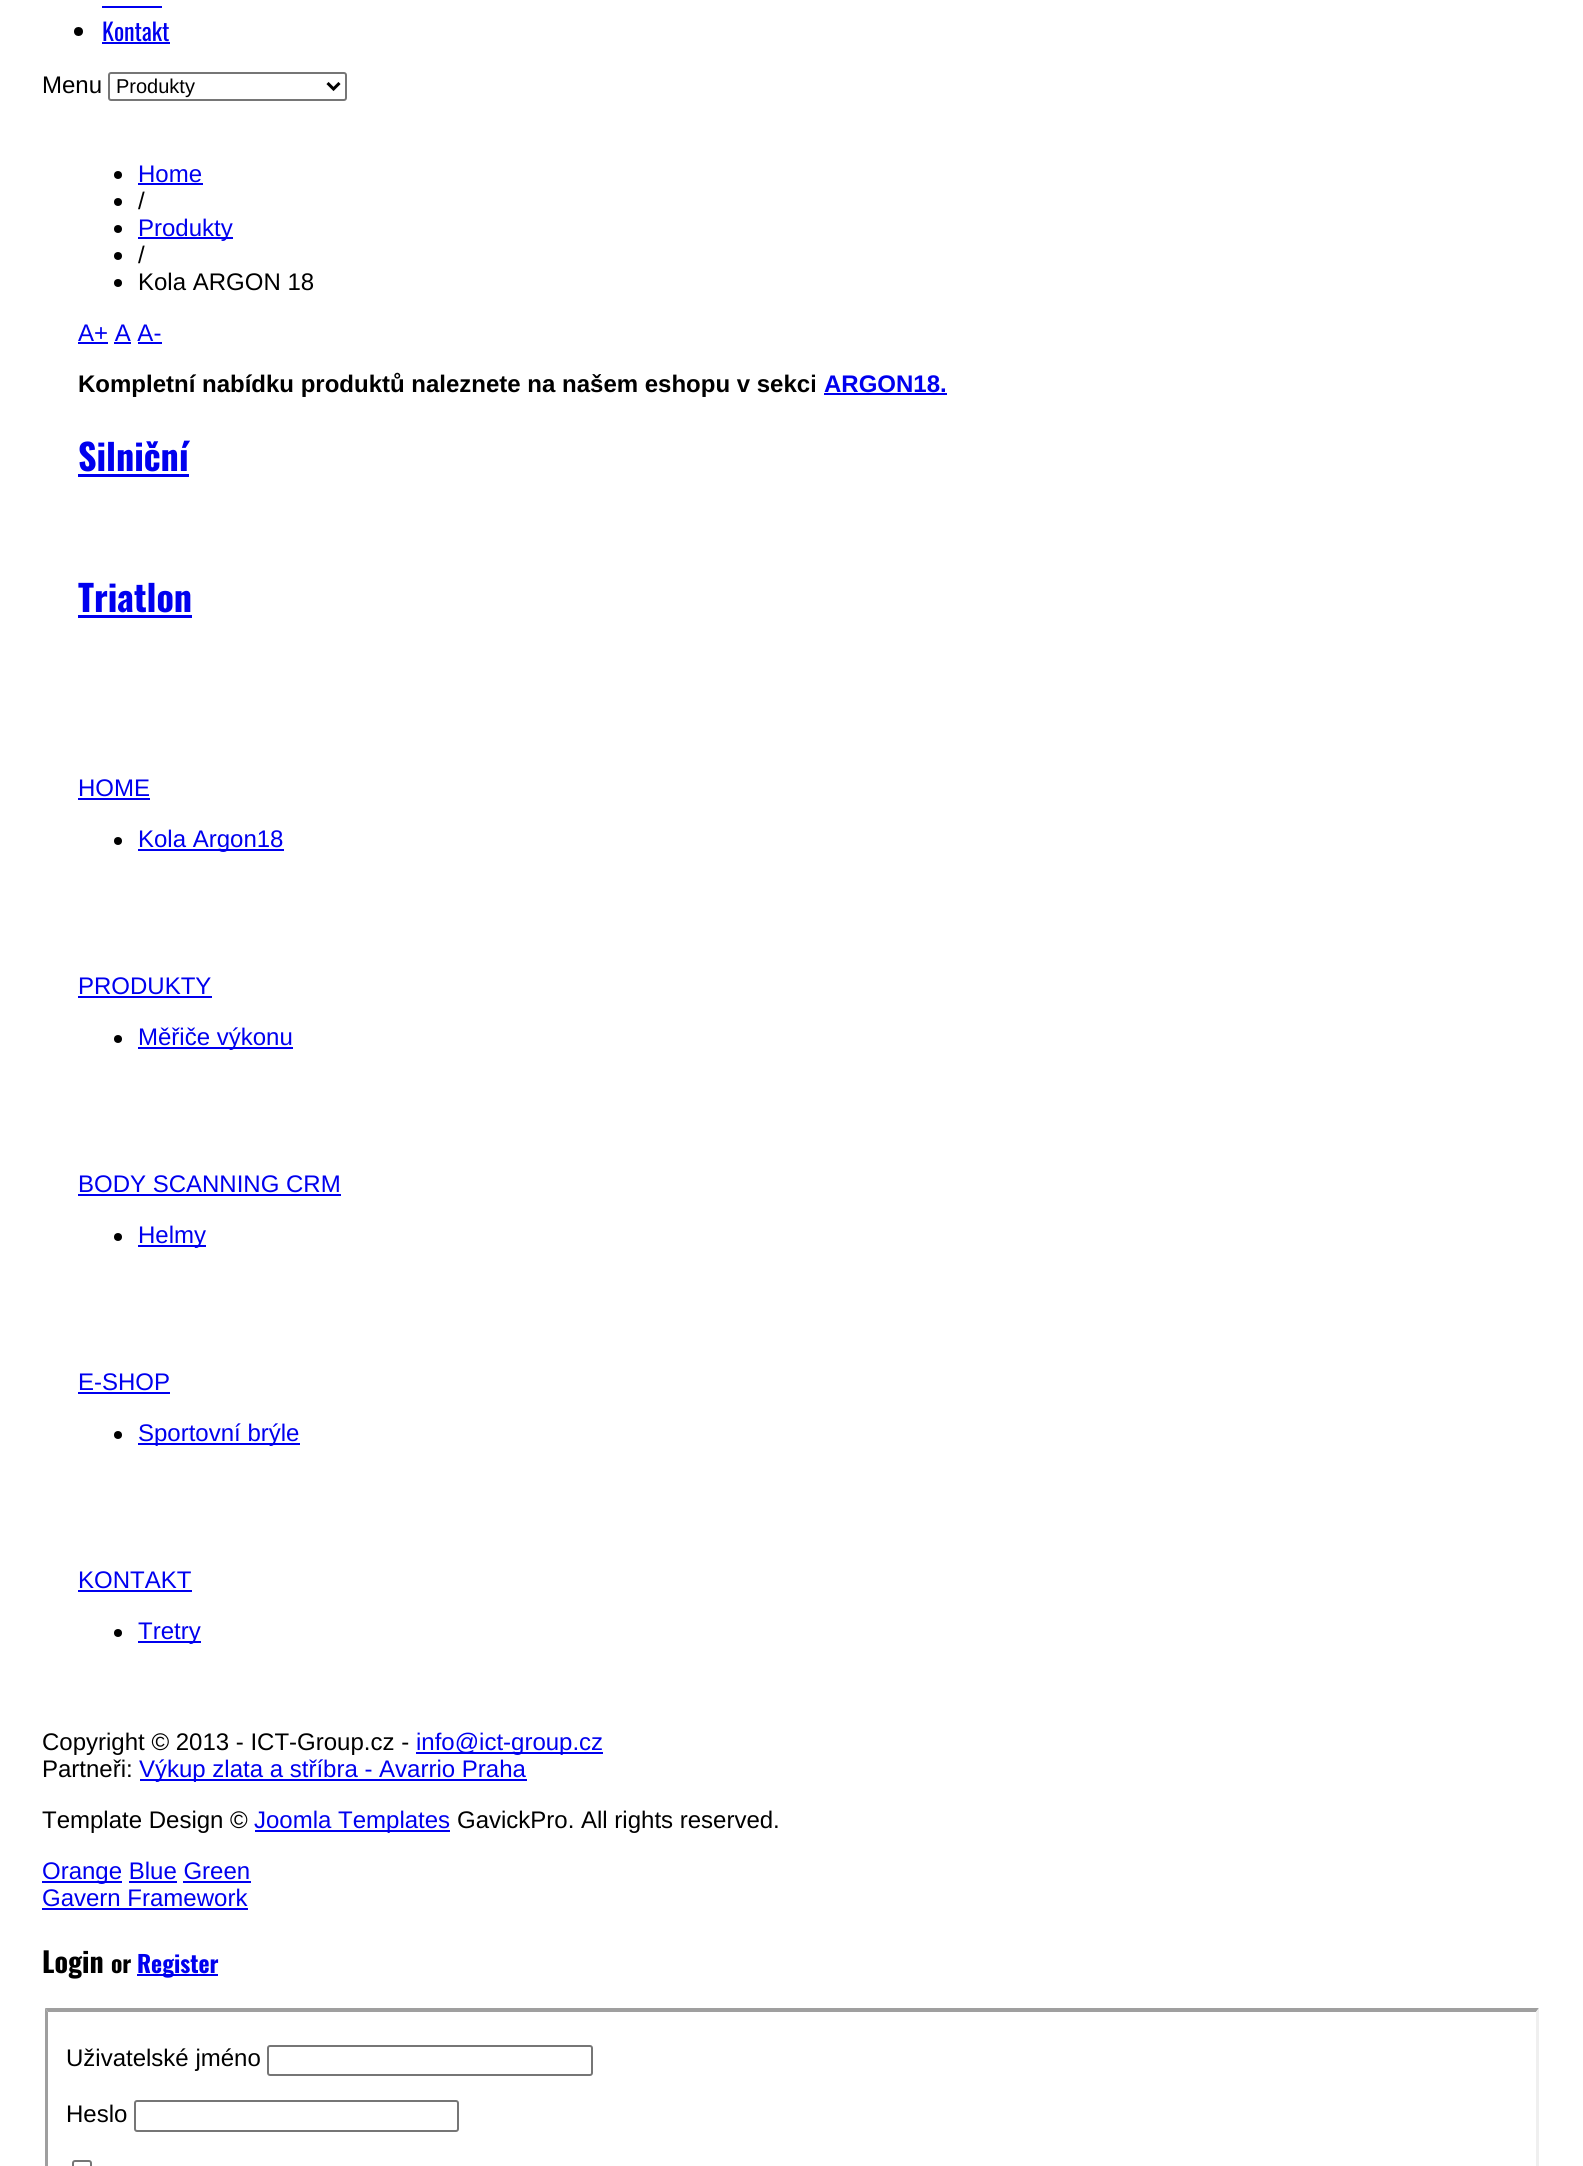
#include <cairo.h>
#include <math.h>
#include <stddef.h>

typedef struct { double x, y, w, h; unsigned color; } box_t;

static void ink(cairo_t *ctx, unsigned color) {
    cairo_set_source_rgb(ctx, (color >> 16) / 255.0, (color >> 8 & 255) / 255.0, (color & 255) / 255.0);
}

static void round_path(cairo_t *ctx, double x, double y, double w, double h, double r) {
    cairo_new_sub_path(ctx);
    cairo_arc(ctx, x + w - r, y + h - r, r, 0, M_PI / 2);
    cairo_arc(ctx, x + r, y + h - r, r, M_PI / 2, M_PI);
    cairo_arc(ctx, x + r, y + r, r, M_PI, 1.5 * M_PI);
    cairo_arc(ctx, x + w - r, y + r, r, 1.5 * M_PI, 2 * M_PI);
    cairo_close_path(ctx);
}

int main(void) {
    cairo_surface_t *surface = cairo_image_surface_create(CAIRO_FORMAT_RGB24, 1583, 2166);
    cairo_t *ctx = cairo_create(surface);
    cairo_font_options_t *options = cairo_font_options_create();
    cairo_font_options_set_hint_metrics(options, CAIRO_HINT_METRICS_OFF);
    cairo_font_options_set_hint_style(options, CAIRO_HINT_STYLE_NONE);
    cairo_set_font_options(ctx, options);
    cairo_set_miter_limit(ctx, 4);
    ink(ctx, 0xFFFFFF);
    cairo_paint(ctx);
    ink(ctx, 0x0000EE);
    cairo_rectangle(ctx, 102, 6, 60, 2);
    cairo_fill(ctx);
    ink(ctx, 0x000000);
    cairo_arc(ctx, 78.5, 31.5, 4.5, 0, 2 * M_PI);
    cairo_fill(ctx);
    cairo_select_font_face(ctx, "Oswald", CAIRO_FONT_SLANT_NORMAL, CAIRO_FONT_WEIGHT_NORMAL);
    cairo_set_font_size(ctx, 24);
    ink(ctx, 0x0000EE);
    cairo_move_to(ctx, 102, 41);
    cairo_show_text(ctx, "Kontakt");
    cairo_rectangle(ctx, 102, 42, 68, 2);
    cairo_fill(ctx);
    cairo_select_font_face(ctx, "Liberation Sans", CAIRO_FONT_SLANT_NORMAL, CAIRO_FONT_WEIGHT_NORMAL);
    ink(ctx, 0x000000);
    cairo_move_to(ctx, 42, 93);
    cairo_show_text(ctx, "Menu");
    round_path(ctx, 109, 73, 237, 27, 2);
    ink(ctx, 0x767676);
    cairo_stroke(ctx);
    cairo_new_path(ctx);
    cairo_move_to(ctx, 327.5, 83);
    cairo_line_to(ctx, 333.5, 89);
    cairo_line_to(ctx, 339.5, 83);
    ink(ctx, 0x000000);
    cairo_set_line_width(ctx, 3);
    cairo_stroke(ctx);
    cairo_set_font_size(ctx, 20);
    cairo_move_to(ctx, 116, 93);
    cairo_show_text(ctx, "Produkty");
    cairo_new_path(ctx);
    cairo_arc(ctx, 118, 175, 4, 0, 2 * M_PI);
    cairo_fill(ctx);
    cairo_set_font_size(ctx, 24);
    ink(ctx, 0x0000EE);
    cairo_move_to(ctx, 138, 182);
    cairo_show_text(ctx, "Home");
    cairo_rectangle(ctx, 138, 183, 65, 2);
    cairo_fill(ctx);
    ink(ctx, 0x000000);
    cairo_arc(ctx, 118, 202, 4, 0, 2 * M_PI);
    cairo_fill(ctx);
    cairo_move_to(ctx, 138, 209);
    cairo_show_text(ctx, "/");
    cairo_new_path(ctx);
    cairo_arc(ctx, 118, 229, 4, 0, 2 * M_PI);
    cairo_fill(ctx);
    ink(ctx, 0x0000EE);
    cairo_rectangle(ctx, 138, 237, 95, 2);
    cairo_fill(ctx);
    cairo_move_to(ctx, 138, 236);
    cairo_show_text(ctx, "Produkty");
    ink(ctx, 0x000000);
    cairo_new_path(ctx);
    cairo_arc(ctx, 118, 256, 4, 0, 2 * M_PI);
    cairo_fill(ctx);
    cairo_move_to(ctx, 138, 263);
    cairo_show_text(ctx, "/");
    cairo_new_path(ctx);
    cairo_arc(ctx, 118, 283, 4, 0, 2 * M_PI);
    cairo_fill(ctx);
    cairo_move_to(ctx, 138, 290);
    cairo_show_text(ctx, "Kola ARGON 18");
    ink(ctx, 0x0000EE);
    cairo_move_to(ctx, 78, 341);
    cairo_show_text(ctx, "A+ A A-");
    {
        static const box_t items[] = {
            {78, 342, 30, 2, 0x0000EE},
            {114, 342, 17, 2, 0x0000EE},
            {138, 342, 24, 2, 0x0000EE},
        };
        for (size_t i = 0; i < sizeof items / sizeof *items; i++) {
            ink(ctx, items[i].color);
            cairo_rectangle(ctx, items[i].x, items[i].y, items[i].w, items[i].h);
            cairo_fill(ctx);
        }
    }
    cairo_select_font_face(ctx, "Liberation Sans", CAIRO_FONT_SLANT_NORMAL, CAIRO_FONT_WEIGHT_BOLD);
    ink(ctx, 0x000000);
    cairo_move_to(ctx, 78, 392);
    cairo_show_text(ctx, "Kompletní nabídku produktů naleznete na našem eshopu v sekci");
    ink(ctx, 0x0000EE);
    cairo_move_to(ctx, 824, 392);
    cairo_show_text(ctx, "ARGON18.");
    cairo_rectangle(ctx, 824, 393, 123, 2);
    cairo_fill(ctx);
    cairo_select_font_face(ctx, "Oswald", CAIRO_FONT_SLANT_NORMAL, CAIRO_FONT_WEIGHT_BOLD);
    cairo_set_font_size(ctx, 36);
    cairo_move_to(ctx, 78, 471);
    cairo_show_text(ctx, "Silniční");
    cairo_rectangle(ctx, 78, 474, 111, 3);
    cairo_fill(ctx);
    cairo_move_to(ctx, 78, 612);
    cairo_show_text(ctx, "Triatlon");
    cairo_rectangle(ctx, 78, 615, 114, 3);
    cairo_fill(ctx);
    cairo_select_font_face(ctx, "Liberation Sans", CAIRO_FONT_SLANT_NORMAL, CAIRO_FONT_WEIGHT_NORMAL);
    cairo_set_font_size(ctx, 24);
    cairo_move_to(ctx, 78, 796);
    cairo_show_text(ctx, "HOME");
    cairo_rectangle(ctx, 78, 798, 72, 2);
    cairo_fill(ctx);
    ink(ctx, 0x000000);
    cairo_arc(ctx, 118, 841, 4, 0, 2 * M_PI);
    cairo_fill(ctx);
    ink(ctx, 0x0000EE);
    cairo_rectangle(ctx, 138, 849, 146, 2);
    cairo_fill(ctx);
    cairo_move_to(ctx, 138, 847);
    cairo_show_text(ctx, "Kola Argon18");
    cairo_move_to(ctx, 78, 994);
    cairo_show_text(ctx, "PRODUKTY");
    cairo_rectangle(ctx, 78, 996, 134, 2);
    cairo_fill(ctx);
    ink(ctx, 0x000000);
    cairo_arc(ctx, 118, 1039, 4, 0, 2 * M_PI);
    cairo_fill(ctx);
    ink(ctx, 0x0000EE);
    cairo_rectangle(ctx, 138, 1047, 155, 2);
    cairo_fill(ctx);
    cairo_move_to(ctx, 138, 1045);
    cairo_show_text(ctx, "Měřiče výkonu");
    cairo_move_to(ctx, 78, 1192);
    cairo_show_text(ctx, "BODY SCANNING CRM");
    cairo_rectangle(ctx, 78, 1194, 263, 2);
    cairo_fill(ctx);
    ink(ctx, 0x000000);
    cairo_arc(ctx, 118, 1237, 4, 0, 2 * M_PI);
    cairo_fill(ctx);
    ink(ctx, 0x0000EE);
    cairo_rectangle(ctx, 138, 1245, 68, 2);
    cairo_fill(ctx);
    cairo_move_to(ctx, 138, 1243);
    cairo_show_text(ctx, "Helmy");
    cairo_move_to(ctx, 78, 1390);
    cairo_show_text(ctx, "E-SHOP");
    cairo_rectangle(ctx, 78, 1392, 92, 2);
    cairo_fill(ctx);
    ink(ctx, 0x000000);
    cairo_arc(ctx, 118, 1435, 4, 0, 2 * M_PI);
    cairo_fill(ctx);
    ink(ctx, 0x0000EE);
    cairo_rectangle(ctx, 138, 1443, 162, 2);
    cairo_fill(ctx);
    cairo_move_to(ctx, 138, 1441);
    cairo_show_text(ctx, "Sportovní brýle");
    cairo_move_to(ctx, 78, 1588);
    cairo_show_text(ctx, "KONTAKT");
    cairo_rectangle(ctx, 78, 1590, 114, 2);
    cairo_fill(ctx);
    ink(ctx, 0x000000);
    cairo_arc(ctx, 118, 1633, 4, 0, 2 * M_PI);
    cairo_fill(ctx);
    ink(ctx, 0x0000EE);
    cairo_rectangle(ctx, 138, 1641, 63, 2);
    cairo_fill(ctx);
    cairo_move_to(ctx, 138, 1639);
    cairo_show_text(ctx, "Tretry");
    ink(ctx, 0x000000);
    cairo_move_to(ctx, 42, 1750);
    cairo_show_text(ctx, "Copyright © 2013 - ICT-Group.cz -");
    ink(ctx, 0x0000EE);
    cairo_rectangle(ctx, 416, 1752, 187, 2);
    cairo_fill(ctx);
    cairo_move_to(ctx, 416, 1750);
    cairo_show_text(ctx, "info@ict-group.cz");
    ink(ctx, 0x000000);
    cairo_move_to(ctx, 42, 1777);
    cairo_show_text(ctx, "Partneři:");
    ink(ctx, 0x0000EE);
    cairo_rectangle(ctx, 140, 1779, 387, 2);
    cairo_fill(ctx);
    cairo_move_to(ctx, 139, 1777);
    cairo_show_text(ctx, "Výkup zlata a stříbra - Avarrio Praha");
    ink(ctx, 0x000000);
    cairo_move_to(ctx, 42, 1828);
    cairo_show_text(ctx, "Template Design ©");
    ink(ctx, 0x0000EE);
    cairo_rectangle(ctx, 255, 1830, 195, 2);
    cairo_fill(ctx);
    cairo_move_to(ctx, 254, 1828);
    cairo_show_text(ctx, "Joomla Templates");
    ink(ctx, 0x000000);
    cairo_move_to(ctx, 457, 1828);
    cairo_show_text(ctx, "GavickPro. All rights reserved.");
    ink(ctx, 0x0000EE);
    cairo_rectangle(ctx, 42, 1881, 80, 2);
    cairo_fill(ctx);
    cairo_move_to(ctx, 42, 1879);
    cairo_show_text(ctx, "Orange Blue Green");
    cairo_rectangle(ctx, 129, 1881, 48, 2);
    cairo_fill(ctx);
    cairo_rectangle(ctx, 183, 1881, 68, 2);
    cairo_fill(ctx);
    cairo_move_to(ctx, 42, 1906);
    cairo_show_text(ctx, "Gavern Framework");
    cairo_rectangle(ctx, 42, 1908, 206, 2);
    cairo_fill(ctx);
    cairo_select_font_face(ctx, "Oswald", CAIRO_FONT_SLANT_NORMAL, CAIRO_FONT_WEIGHT_BOLD);
    cairo_set_font_size(ctx, 28);
    ink(ctx, 0x000000);
    cairo_move_to(ctx, 42, 1973);
    cairo_show_text(ctx, "Login");
    cairo_set_font_size(ctx, 23.5);
    cairo_move_to(ctx, 111, 1973);
    cairo_show_text(ctx, "or");
    ink(ctx, 0x0000EE);
    cairo_rectangle(ctx, 137, 1974, 81, 2);
    cairo_fill(ctx);
    cairo_move_to(ctx, 137, 1973);
    cairo_show_text(ctx, "Register");
    ink(ctx, 0x9F9F9F);
    cairo_new_path(ctx);
    cairo_move_to(ctx, 45, 2008);
    cairo_line_to(ctx, 1539, 2008);
    cairo_line_to(ctx, 1536, 2012);
    cairo_line_to(ctx, 48, 2012);
    cairo_close_path(ctx);
    cairo_fill(ctx);
    ink(ctx, 0xEFEFEF);
    cairo_new_path(ctx);
    cairo_move_to(ctx, 1539, 2008);
    cairo_line_to(ctx, 1539, 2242);
    cairo_line_to(ctx, 1536, 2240);
    cairo_line_to(ctx, 1536, 2012);
    cairo_close_path(ctx);
    cairo_fill(ctx);
    ink(ctx, 0x9F9F9F);
    cairo_new_path(ctx);
    cairo_move_to(ctx, 45, 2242);
    cairo_line_to(ctx, 45, 2008);
    cairo_line_to(ctx, 48, 2012);
    cairo_line_to(ctx, 48, 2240);
    cairo_close_path(ctx);
    cairo_fill(ctx);
    cairo_select_font_face(ctx, "Liberation Sans", CAIRO_FONT_SLANT_NORMAL, CAIRO_FONT_WEIGHT_NORMAL);
    cairo_set_font_size(ctx, 24);
    ink(ctx, 0x000000);
    cairo_move_to(ctx, 66, 2066);
    cairo_show_text(ctx, "Uživatelské jméno");
    round_path(ctx, 268, 2046, 324, 29, 2);
    ink(ctx, 0x767676);
    cairo_set_line_width(ctx, 2);
    cairo_stroke(ctx);
    ink(ctx, 0x000000);
    cairo_move_to(ctx, 66, 2122);
    cairo_show_text(ctx, "Heslo");
    round_path(ctx, 135, 2101, 323, 30, 2);
    ink(ctx, 0x767676);
    cairo_stroke(ctx);
    round_path(ctx, 73, 2161, 18, 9, 2);
    cairo_stroke(ctx);
    cairo_surface_write_to_png(surface, "image.png");
    cairo_font_options_destroy(options);
    cairo_destroy(ctx);
    cairo_surface_destroy(surface);
    return 0;
}
